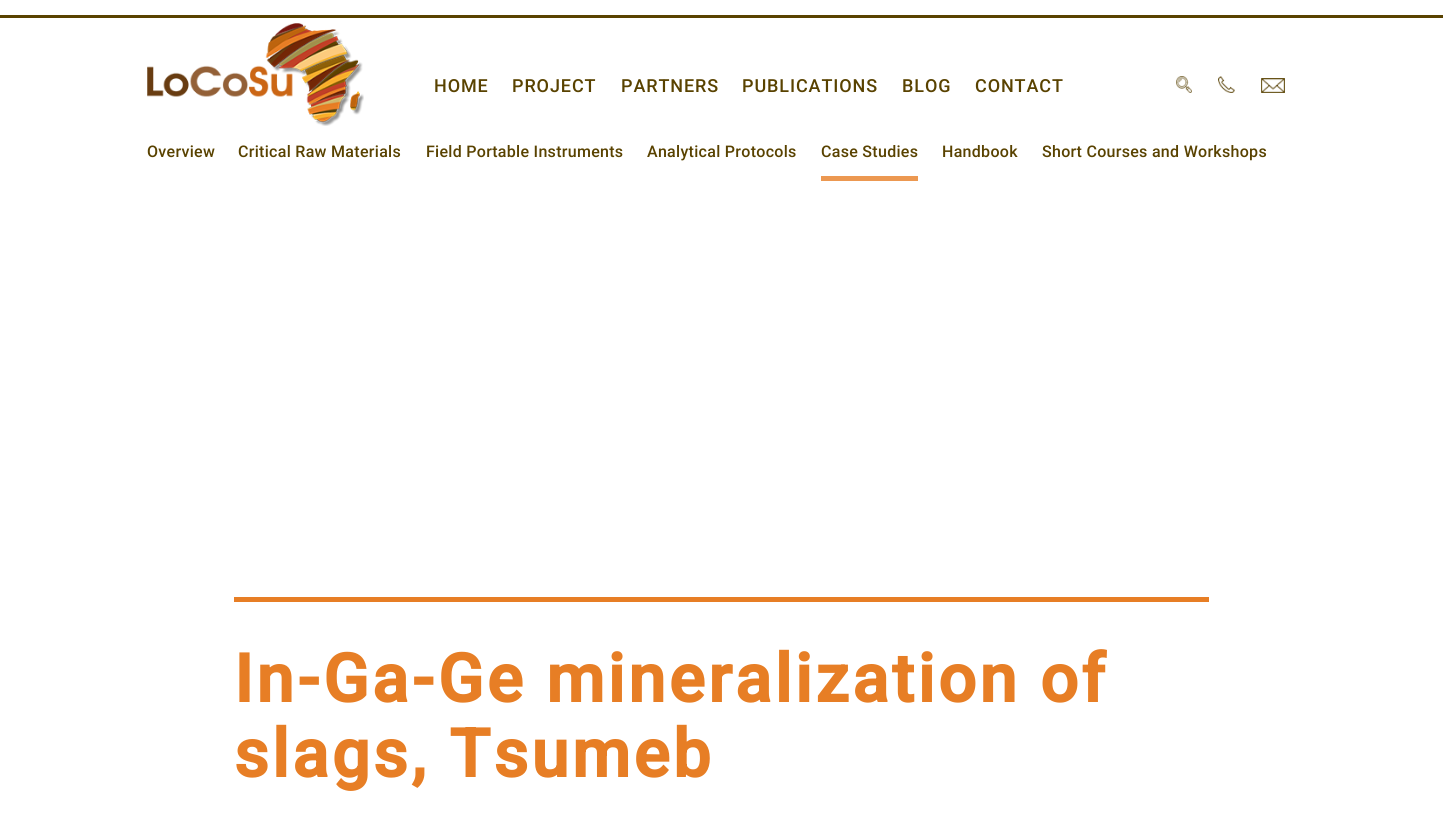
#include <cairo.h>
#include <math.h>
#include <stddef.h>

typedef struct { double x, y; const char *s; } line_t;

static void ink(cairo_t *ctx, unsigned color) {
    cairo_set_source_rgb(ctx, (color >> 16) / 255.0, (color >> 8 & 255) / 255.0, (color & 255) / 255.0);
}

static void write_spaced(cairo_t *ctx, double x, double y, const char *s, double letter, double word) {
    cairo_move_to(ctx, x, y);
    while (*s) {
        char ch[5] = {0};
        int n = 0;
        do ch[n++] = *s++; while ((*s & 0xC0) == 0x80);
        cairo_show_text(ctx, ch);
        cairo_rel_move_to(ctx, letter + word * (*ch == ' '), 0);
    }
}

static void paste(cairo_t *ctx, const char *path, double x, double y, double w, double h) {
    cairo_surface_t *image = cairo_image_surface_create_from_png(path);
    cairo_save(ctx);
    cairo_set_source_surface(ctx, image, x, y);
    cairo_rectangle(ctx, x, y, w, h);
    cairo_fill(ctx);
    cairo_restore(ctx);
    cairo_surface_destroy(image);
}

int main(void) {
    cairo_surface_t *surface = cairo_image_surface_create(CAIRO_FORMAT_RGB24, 1443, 813);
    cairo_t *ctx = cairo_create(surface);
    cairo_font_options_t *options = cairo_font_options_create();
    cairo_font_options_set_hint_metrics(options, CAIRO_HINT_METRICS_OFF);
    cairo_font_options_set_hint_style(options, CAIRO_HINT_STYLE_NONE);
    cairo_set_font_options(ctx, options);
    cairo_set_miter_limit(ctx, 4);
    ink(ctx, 0xFFFFFF);
    cairo_paint(ctx);
    ink(ctx, 0x594200);
    cairo_rectangle(ctx, 0, 15, 1443, 3);
    cairo_fill(ctx);
    paste(ctx, "media/1.png", 147, 23, 217, 103);
    cairo_select_font_face(ctx, "Roboto Medium", CAIRO_FONT_SLANT_NORMAL, CAIRO_FONT_WEIGHT_NORMAL);
    cairo_set_font_size(ctx, 18);
    {
        static const line_t items[] = {
            {434, 92, "HOME"},
            {512, 92, "PROJECT"},
            {621, 92, "PARTNERS"},
            {742, 92, "PUBLICATIONS"},
            {902, 92, "BLOG"},
            {975, 92, "CONTACT"},
        };
        for (size_t i = 0; i < sizeof items / sizeof *items; i++) {
            write_spaced(ctx, items[i].x, items[i].y, items[i].s, 0.9, 0);
        }
    }
    paste(ctx, "media/2.png", 1176, 76, 16, 17);
    paste(ctx, "media/3.png", 1218, 76, 17, 17);
    paste(ctx, "media/4.png", 1261, 78, 24, 15);
    cairo_set_font_size(ctx, 16);
    {
        static const line_t items[] = {
            {147, 157, "Overview"},
            {238, 157, "Critical Raw Materials"},
            {426, 157, "Field Portable Instruments"},
            {647, 157, "Analytical Protocols"},
        };
        for (size_t i = 0; i < sizeof items / sizeof *items; i++) {
            write_spaced(ctx, items[i].x, items[i].y, items[i].s, 0.3, 0);
        }
    }
    ink(ctx, 0xEC9851);
    cairo_rectangle(ctx, 821, 176, 97, 5);
    cairo_fill(ctx);
    ink(ctx, 0x594200);
    {
        static const line_t items[] = {
            {821, 157, "Case Studies"},
            {942, 157, "Handbook"},
            {1042, 157, "Short Courses and Workshops"},
        };
        for (size_t i = 0; i < sizeof items / sizeof *items; i++) {
            write_spaced(ctx, items[i].x, items[i].y, items[i].s, 0.3, 0);
        }
    }
    ink(ctx, 0xE77E25);
    cairo_rectangle(ctx, 234, 597, 975, 5);
    cairo_fill(ctx);
    cairo_select_font_face(ctx, "Roboto", CAIRO_FONT_SLANT_NORMAL, CAIRO_FONT_WEIGHT_BOLD);
    cairo_set_font_size(ctx, 67);
    write_spaced(ctx, 234, 702, "In-Ga-Ge mineralization of", 3.35, 0);
    write_spaced(ctx, 234, 777, "slags, Tsumeb", 3.35, 0);
    cairo_surface_write_to_png(surface, "image.png");
    cairo_font_options_destroy(options);
    cairo_destroy(ctx);
    cairo_surface_destroy(surface);
    return 0;
}
